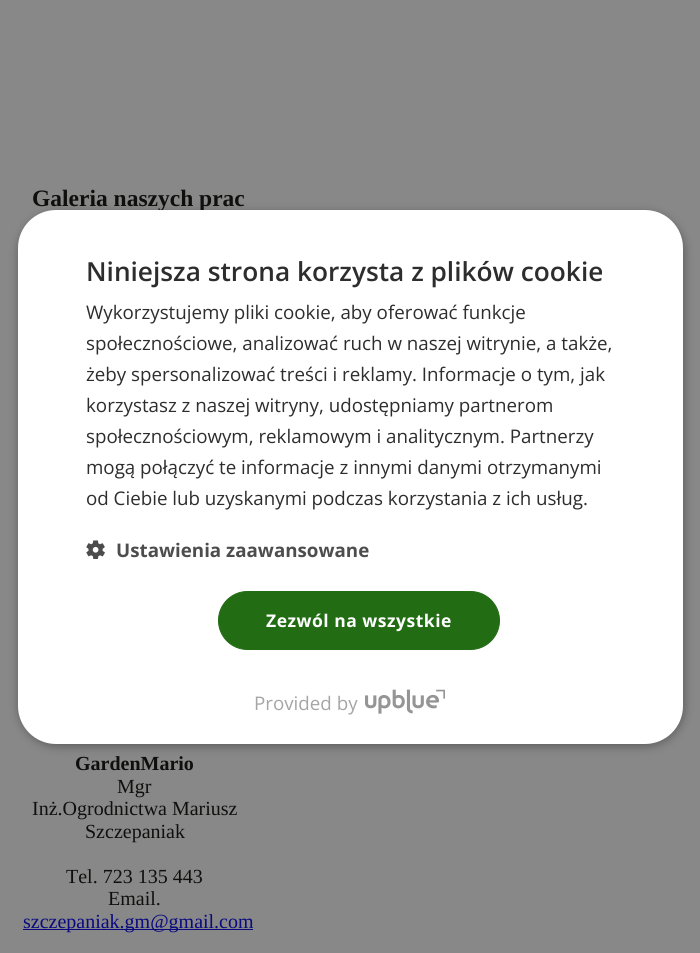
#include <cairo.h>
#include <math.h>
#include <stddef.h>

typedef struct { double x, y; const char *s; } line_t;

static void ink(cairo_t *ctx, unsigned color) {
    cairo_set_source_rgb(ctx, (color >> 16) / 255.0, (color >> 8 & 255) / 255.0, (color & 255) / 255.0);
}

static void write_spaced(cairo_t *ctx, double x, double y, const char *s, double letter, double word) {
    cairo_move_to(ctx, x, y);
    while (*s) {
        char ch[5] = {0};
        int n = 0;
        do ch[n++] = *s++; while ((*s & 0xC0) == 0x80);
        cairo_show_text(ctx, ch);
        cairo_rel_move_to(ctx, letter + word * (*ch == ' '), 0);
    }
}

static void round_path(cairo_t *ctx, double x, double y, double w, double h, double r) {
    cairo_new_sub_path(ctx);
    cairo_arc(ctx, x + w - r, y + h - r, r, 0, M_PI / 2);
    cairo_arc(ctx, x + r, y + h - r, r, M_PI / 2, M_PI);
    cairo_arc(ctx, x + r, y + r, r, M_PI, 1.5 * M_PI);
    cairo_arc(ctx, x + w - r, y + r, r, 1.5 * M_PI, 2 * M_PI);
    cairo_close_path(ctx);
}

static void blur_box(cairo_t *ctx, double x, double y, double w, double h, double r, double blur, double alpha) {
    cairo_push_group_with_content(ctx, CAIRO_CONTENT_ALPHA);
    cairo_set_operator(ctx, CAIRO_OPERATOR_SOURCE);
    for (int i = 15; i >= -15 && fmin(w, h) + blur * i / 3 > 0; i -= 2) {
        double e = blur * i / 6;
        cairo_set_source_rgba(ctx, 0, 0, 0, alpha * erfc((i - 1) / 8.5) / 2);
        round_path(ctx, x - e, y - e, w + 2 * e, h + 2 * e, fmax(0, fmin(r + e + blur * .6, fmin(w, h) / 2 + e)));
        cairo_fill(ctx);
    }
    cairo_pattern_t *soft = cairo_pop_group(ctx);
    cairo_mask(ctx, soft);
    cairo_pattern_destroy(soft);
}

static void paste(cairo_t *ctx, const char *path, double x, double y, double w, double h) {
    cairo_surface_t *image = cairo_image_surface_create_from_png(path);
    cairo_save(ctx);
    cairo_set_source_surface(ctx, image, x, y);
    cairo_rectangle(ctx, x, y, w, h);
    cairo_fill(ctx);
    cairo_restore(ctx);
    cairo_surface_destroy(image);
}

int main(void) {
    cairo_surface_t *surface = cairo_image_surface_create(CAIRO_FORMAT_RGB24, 700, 953);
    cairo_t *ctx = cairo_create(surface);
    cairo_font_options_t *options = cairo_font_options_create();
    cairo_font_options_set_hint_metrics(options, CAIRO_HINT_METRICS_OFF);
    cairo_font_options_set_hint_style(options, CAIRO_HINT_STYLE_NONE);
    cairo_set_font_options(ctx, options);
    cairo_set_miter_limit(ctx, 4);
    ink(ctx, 0x888888);
    cairo_paint(ctx);
    cairo_select_font_face(ctx, "Liberation Serif", CAIRO_FONT_SLANT_NORMAL, CAIRO_FONT_WEIGHT_BOLD);
    cairo_set_font_size(ctx, 23.5);
    ink(ctx, 0x0F100E);
    cairo_move_to(ctx, 32, 206);
    cairo_show_text(ctx, "Galeria naszych prac");
    cairo_set_font_size(ctx, 20);
    cairo_move_to(ctx, 75, 770);
    cairo_show_text(ctx, "GardenMario");
    cairo_select_font_face(ctx, "Liberation Serif", CAIRO_FONT_SLANT_NORMAL, CAIRO_FONT_WEIGHT_NORMAL);
    {
        static const line_t items[] = {
            {117, 793, "Mgr"},
            {32, 815, "Inż.Ogrodnictwa Mariusz"},
            {85, 838, "Szczepaniak"},
            {66, 883, "Tel. 723 135 443"},
            {108, 905, "Email."},
        };
        for (size_t i = 0; i < sizeof items / sizeof *items; i++) {
            cairo_move_to(ctx, items[i].x, items[i].y);
            cairo_show_text(ctx, items[i].s);
        }
    }
    ink(ctx, 0x090980);
    cairo_rectangle(ctx, 23, 929, 230, 1);
    cairo_fill(ctx);
    cairo_move_to(ctx, 23, 928);
    cairo_show_text(ctx, "szczepaniak.gm@gmail.com");
    ink(ctx, 0x000000);
    blur_box(ctx, 19, 213, 665, 533, 38, 5, 0.35);
    ink(ctx, 0xFFFFFF);
    round_path(ctx, 18, 210, 665, 534, 38);
    cairo_fill(ctx);
    cairo_select_font_face(ctx, "Open Sans SemiBold", CAIRO_FONT_SLANT_NORMAL, CAIRO_FONT_WEIGHT_NORMAL);
    cairo_set_font_size(ctx, 26.25);
    ink(ctx, 0x2D2D2D);
    cairo_move_to(ctx, 86, 281);
    cairo_show_text(ctx, "Niniejsza strona korzysta z plików cookie");
    cairo_select_font_face(ctx, "Open Sans", CAIRO_FONT_SLANT_NORMAL, CAIRO_FONT_WEIGHT_NORMAL);
    cairo_set_font_size(ctx, 18.75);
    {
        static const line_t items[] = {
            {86, 319, "Wykorzystujemy pliki cookie, aby oferować funkcje"},
            {86, 350, "społecznościowe, analizować ruch w naszej witrynie, a także,"},
            {86, 381, "żeby spersonalizować treści i reklamy. Informacje o tym, jak"},
            {86, 412, "korzystasz z naszej witryny, udostępniamy partnerom"},
            {86, 443, "społecznościowym, reklamowym i analitycznym. Partnerzy"},
            {86, 474, "mogą połączyć te informacje z innymi danymi otrzymanymi"},
            {86, 505, "od Ciebie lub uzyskanymi podczas korzystania z ich usług."},
        };
        for (size_t i = 0; i < sizeof items / sizeof *items; i++) {
            cairo_move_to(ctx, items[i].x, items[i].y);
            cairo_show_text(ctx, items[i].s);
        }
    }
    paste(ctx, "media/1.png", 86, 540, 19, 19);
    cairo_select_font_face(ctx, "Open Sans", CAIRO_FONT_SLANT_NORMAL, CAIRO_FONT_WEIGHT_BOLD);
    ink(ctx, 0x4D4D4D);
    cairo_move_to(ctx, 116, 557);
    cairo_show_text(ctx, "Ustawienia zaawansowane");
    ink(ctx, 0x226C14);
    round_path(ctx, 218.5, 591.5, 281, 58, 29);
    cairo_fill_preserve(ctx);
    cairo_set_line_width(ctx, 1);
    cairo_stroke(ctx);
    cairo_set_font_size(ctx, 17.5);
    ink(ctx, 0xFFFFFF);
    write_spaced(ctx, 266, 627, "Zezwól na wszystkie", 0.5, 0);
    cairo_select_font_face(ctx, "Open Sans", CAIRO_FONT_SLANT_NORMAL, CAIRO_FONT_WEIGHT_NORMAL);
    cairo_set_font_size(ctx, 18.75);
    ink(ctx, 0xA5A5A5);
    cairo_move_to(ctx, 254, 710);
    cairo_show_text(ctx, "Provided by");
    paste(ctx, "media/2.png", 365, 689, 80, 25);
    cairo_surface_write_to_png(surface, "image.png");
    cairo_font_options_destroy(options);
    cairo_destroy(ctx);
    cairo_surface_destroy(surface);
    return 0;
}
